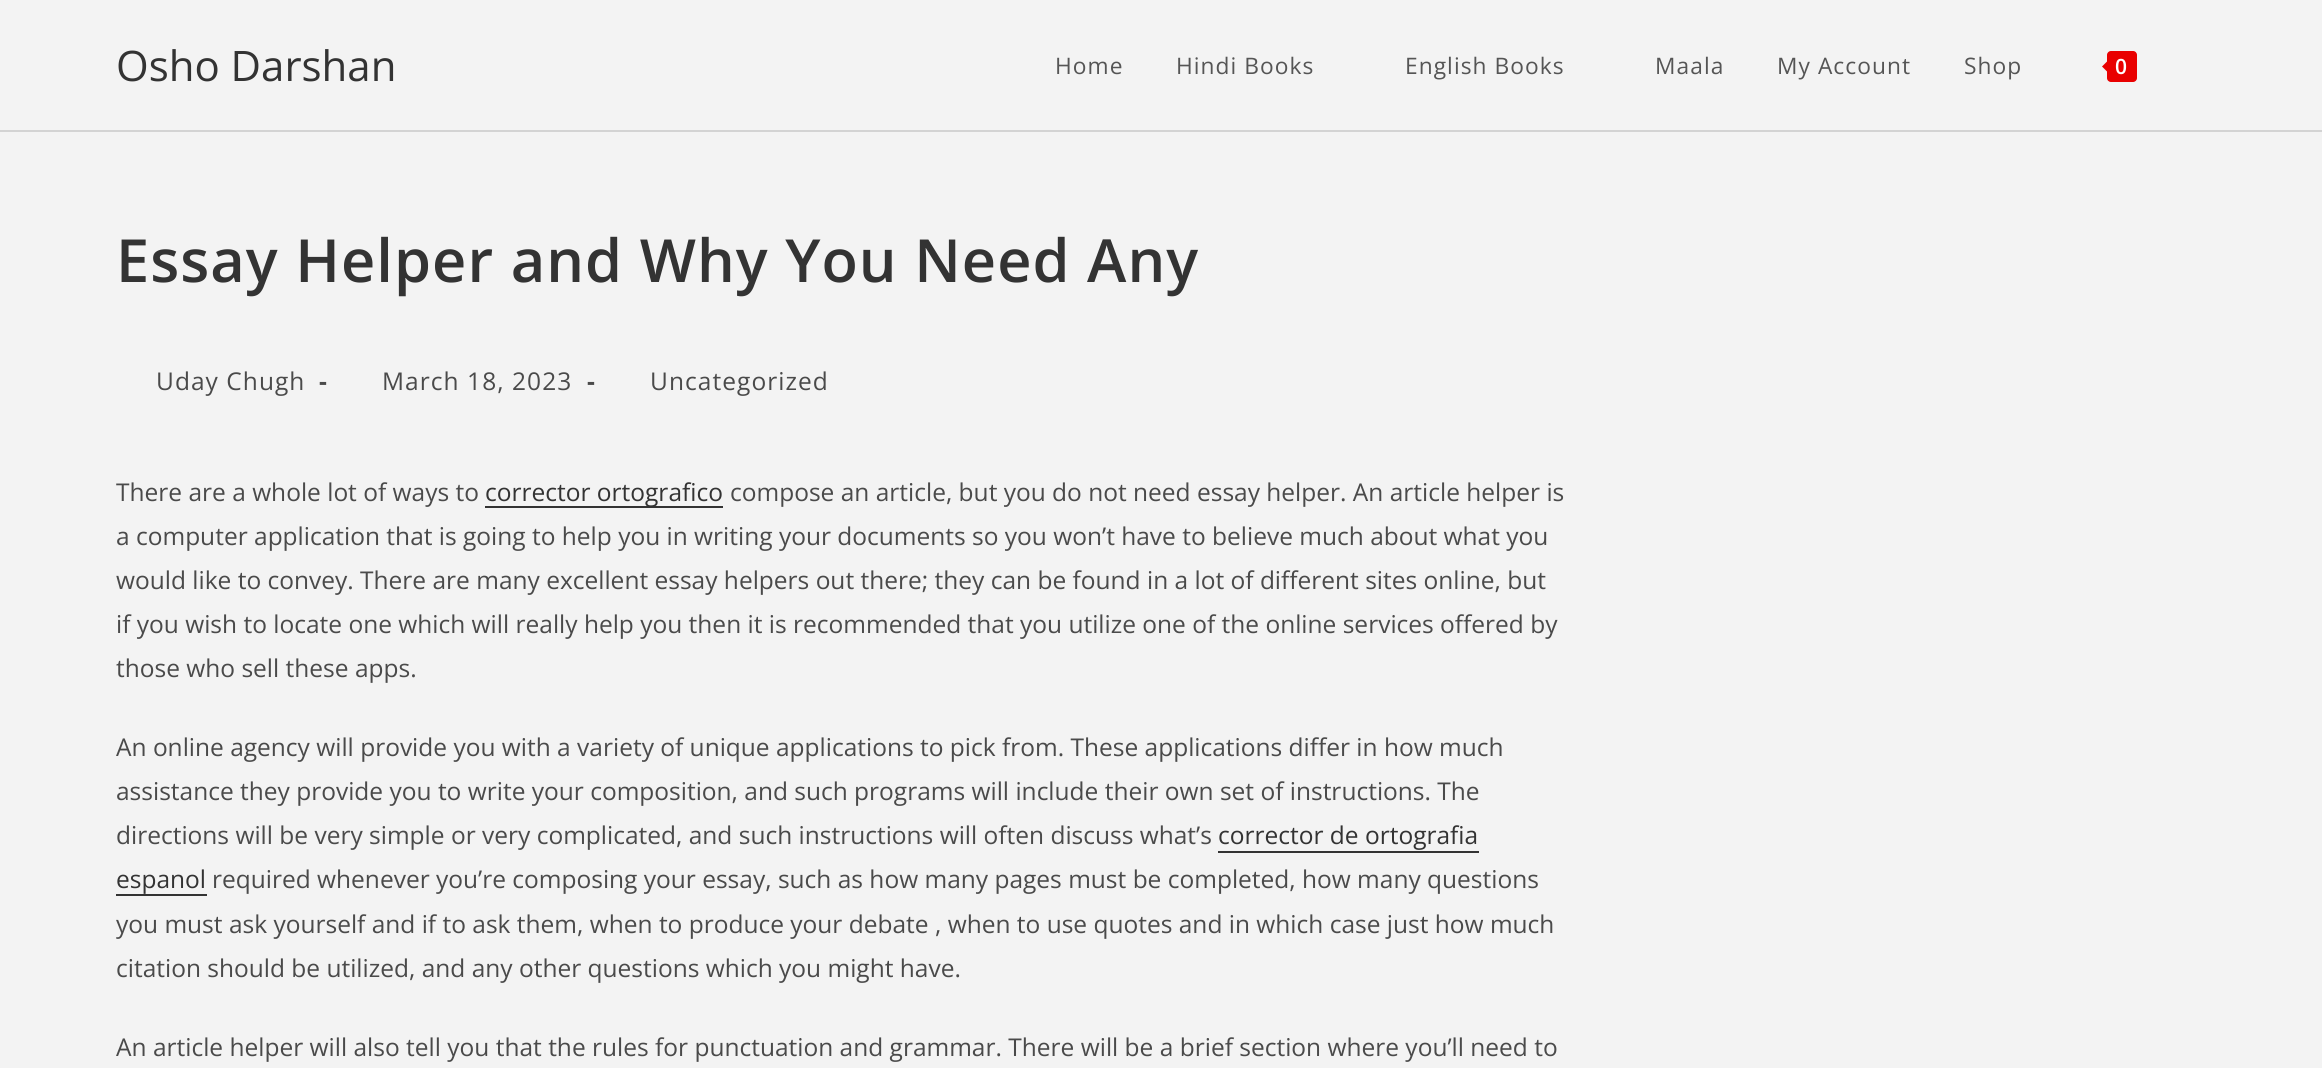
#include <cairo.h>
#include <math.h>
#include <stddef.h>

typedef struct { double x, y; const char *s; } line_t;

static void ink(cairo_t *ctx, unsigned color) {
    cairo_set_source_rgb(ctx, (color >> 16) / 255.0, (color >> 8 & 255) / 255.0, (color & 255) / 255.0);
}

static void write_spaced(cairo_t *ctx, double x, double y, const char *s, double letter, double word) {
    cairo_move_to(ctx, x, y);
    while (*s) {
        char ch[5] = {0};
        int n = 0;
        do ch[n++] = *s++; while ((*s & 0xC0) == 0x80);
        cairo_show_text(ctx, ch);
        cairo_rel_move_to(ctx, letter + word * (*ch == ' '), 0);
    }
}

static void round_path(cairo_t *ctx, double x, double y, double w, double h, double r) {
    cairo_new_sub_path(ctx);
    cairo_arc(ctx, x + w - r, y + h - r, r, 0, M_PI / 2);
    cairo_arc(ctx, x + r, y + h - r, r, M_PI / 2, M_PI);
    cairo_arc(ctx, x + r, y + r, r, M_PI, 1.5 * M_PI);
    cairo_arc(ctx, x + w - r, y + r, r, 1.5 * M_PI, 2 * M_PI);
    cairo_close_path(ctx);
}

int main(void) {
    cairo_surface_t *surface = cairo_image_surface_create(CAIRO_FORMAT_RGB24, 2322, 1068);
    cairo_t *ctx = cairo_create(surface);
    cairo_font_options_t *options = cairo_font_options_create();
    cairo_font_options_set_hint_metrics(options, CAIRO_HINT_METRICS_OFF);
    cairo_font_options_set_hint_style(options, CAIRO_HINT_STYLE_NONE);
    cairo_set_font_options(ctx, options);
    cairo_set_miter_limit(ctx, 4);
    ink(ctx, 0xF3F3F3);
    cairo_paint(ctx);
    ink(ctx, 0xD3D3D3);
    cairo_rectangle(ctx, 0, 130, 2322, 2);
    cairo_fill(ctx);
    cairo_select_font_face(ctx, "Open Sans", CAIRO_FONT_SLANT_NORMAL, CAIRO_FONT_WEIGHT_NORMAL);
    cairo_set_font_size(ctx, 42);
    ink(ctx, 0x333333);
    cairo_move_to(ctx, 116, 81);
    cairo_show_text(ctx, "Osho Darshan");
    cairo_set_font_size(ctx, 22.75);
    ink(ctx, 0x555555);
    {
        static const line_t items[] = {
            {1055, 74, "Home"},
            {1176, 74, "Hindi Books"},
            {1405, 74, "English Books"},
            {1655, 74, "Maala"},
            {1777, 74, "My Account"},
            {1964, 74, "Shop"},
        };
        for (size_t i = 0; i < sizeof items / sizeof *items; i++) {
            write_spaced(ctx, items[i].x, items[i].y, items[i].s, 1.05, 0);
        }
    }
    ink(ctx, 0xE90000);
    round_path(ctx, 2107, 51, 30, 31, 4);
    cairo_fill(ctx);
    cairo_new_path(ctx);
    cairo_move_to(ctx, 2110.5, 58);
    cairo_line_to(ctx, 2110.5, 75);
    cairo_line_to(ctx, 2102, 66.5);
    cairo_close_path(ctx);
    cairo_fill(ctx);
    cairo_select_font_face(ctx, "Open Sans SemiBold", CAIRO_FONT_SLANT_NORMAL, CAIRO_FONT_WEIGHT_NORMAL);
    cairo_set_font_size(ctx, 21);
    ink(ctx, 0xFFFFFF);
    cairo_move_to(ctx, 2115, 74);
    cairo_show_text(ctx, "0");
    cairo_set_font_size(ctx, 59.5);
    ink(ctx, 0x333333);
    write_spaced(ctx, 116, 282, "Essay Helper and Why You Need Any", 1.05, 0);
    cairo_select_font_face(ctx, "Open Sans", CAIRO_FONT_SLANT_NORMAL, CAIRO_FONT_WEIGHT_NORMAL);
    cairo_set_font_size(ctx, 24.5);
    ink(ctx, 0x4A4A4A);
    write_spaced(ctx, 156, 390, "Uday Chugh", 1.05, 0);
    cairo_select_font_face(ctx, "Open Sans", CAIRO_FONT_SLANT_NORMAL, CAIRO_FONT_WEIGHT_BOLD);
    write_spaced(ctx, 319, 390, "-", 1.05, 0);
    cairo_select_font_face(ctx, "Open Sans", CAIRO_FONT_SLANT_NORMAL, CAIRO_FONT_WEIGHT_NORMAL);
    write_spaced(ctx, 382, 390, "March 18, 2023", 1.05, 0);
    cairo_select_font_face(ctx, "Open Sans", CAIRO_FONT_SLANT_NORMAL, CAIRO_FONT_WEIGHT_BOLD);
    write_spaced(ctx, 587, 390, "-", 1.05, 0);
    cairo_select_font_face(ctx, "Open Sans", CAIRO_FONT_SLANT_NORMAL, CAIRO_FONT_WEIGHT_NORMAL);
    write_spaced(ctx, 650, 390, "Uncategorized", 1.05, 0);
    cairo_move_to(ctx, 116, 501);
    cairo_show_text(ctx, "There are a whole lot of ways to");
    ink(ctx, 0x333333);
    cairo_rectangle(ctx, 485, 506, 238, 2);
    cairo_fill(ctx);
    cairo_move_to(ctx, 485, 501);
    cairo_show_text(ctx, "corrector ortografico");
    ink(ctx, 0x4A4A4A);
    {
        static const line_t items[] = {
            {730, 501, "compose an article, but you do not need essay helper. An article helper is"},
            {116, 545, "a computer application that is going to help you in writing your documents so you won’t have to believe much about what you"},
            {116, 589, "would like to convey. There are many excellent essay helpers out there; they can be found in a lot of different sites online, but"},
            {116, 633, "if you wish to locate one which will really help you then it is recommended that you utilize one of the online services offered by"},
            {116, 677, "those who sell these apps."},
            {116, 756, "An online agency will provide you with a variety of unique applications to pick from. These applications differ in how much"},
            {116, 800, "assistance they provide you to write your composition, and such programs will include their own set of instructions. The"},
            {116, 844, "directions will be very simple or very complicated, and such instructions will often discuss what’s"},
        };
        for (size_t i = 0; i < sizeof items / sizeof *items; i++) {
            cairo_move_to(ctx, items[i].x, items[i].y);
            cairo_show_text(ctx, items[i].s);
        }
    }
    ink(ctx, 0x333333);
    cairo_move_to(ctx, 1218, 844);
    cairo_show_text(ctx, "corrector de ortografia");
    cairo_rectangle(ctx, 1218, 851, 261, 2);
    cairo_fill(ctx);
    cairo_move_to(ctx, 116, 888);
    cairo_show_text(ctx, "espanol");
    cairo_rectangle(ctx, 116, 894, 91, 2);
    cairo_fill(ctx);
    ink(ctx, 0x4A4A4A);
    {
        static const line_t items[] = {
            {212, 888, "required whenever you’re composing your essay, such as how many pages must be completed, how many questions"},
            {116, 933, "you must ask yourself and if to ask them, when to produce your debate , when to use quotes and in which case just how much"},
            {116, 977, "citation should be utilized, and any other questions which you might have."},
            {116, 1056, "An article helper will also tell you that the rules for punctuation and grammar. There will be a brief section where you’ll need to"},
        };
        for (size_t i = 0; i < sizeof items / sizeof *items; i++) {
            cairo_move_to(ctx, items[i].x, items[i].y);
            cairo_show_text(ctx, items[i].s);
        }
    }
    cairo_surface_write_to_png(surface, "image.png");
    cairo_font_options_destroy(options);
    cairo_destroy(ctx);
    cairo_surface_destroy(surface);
    return 0;
}
